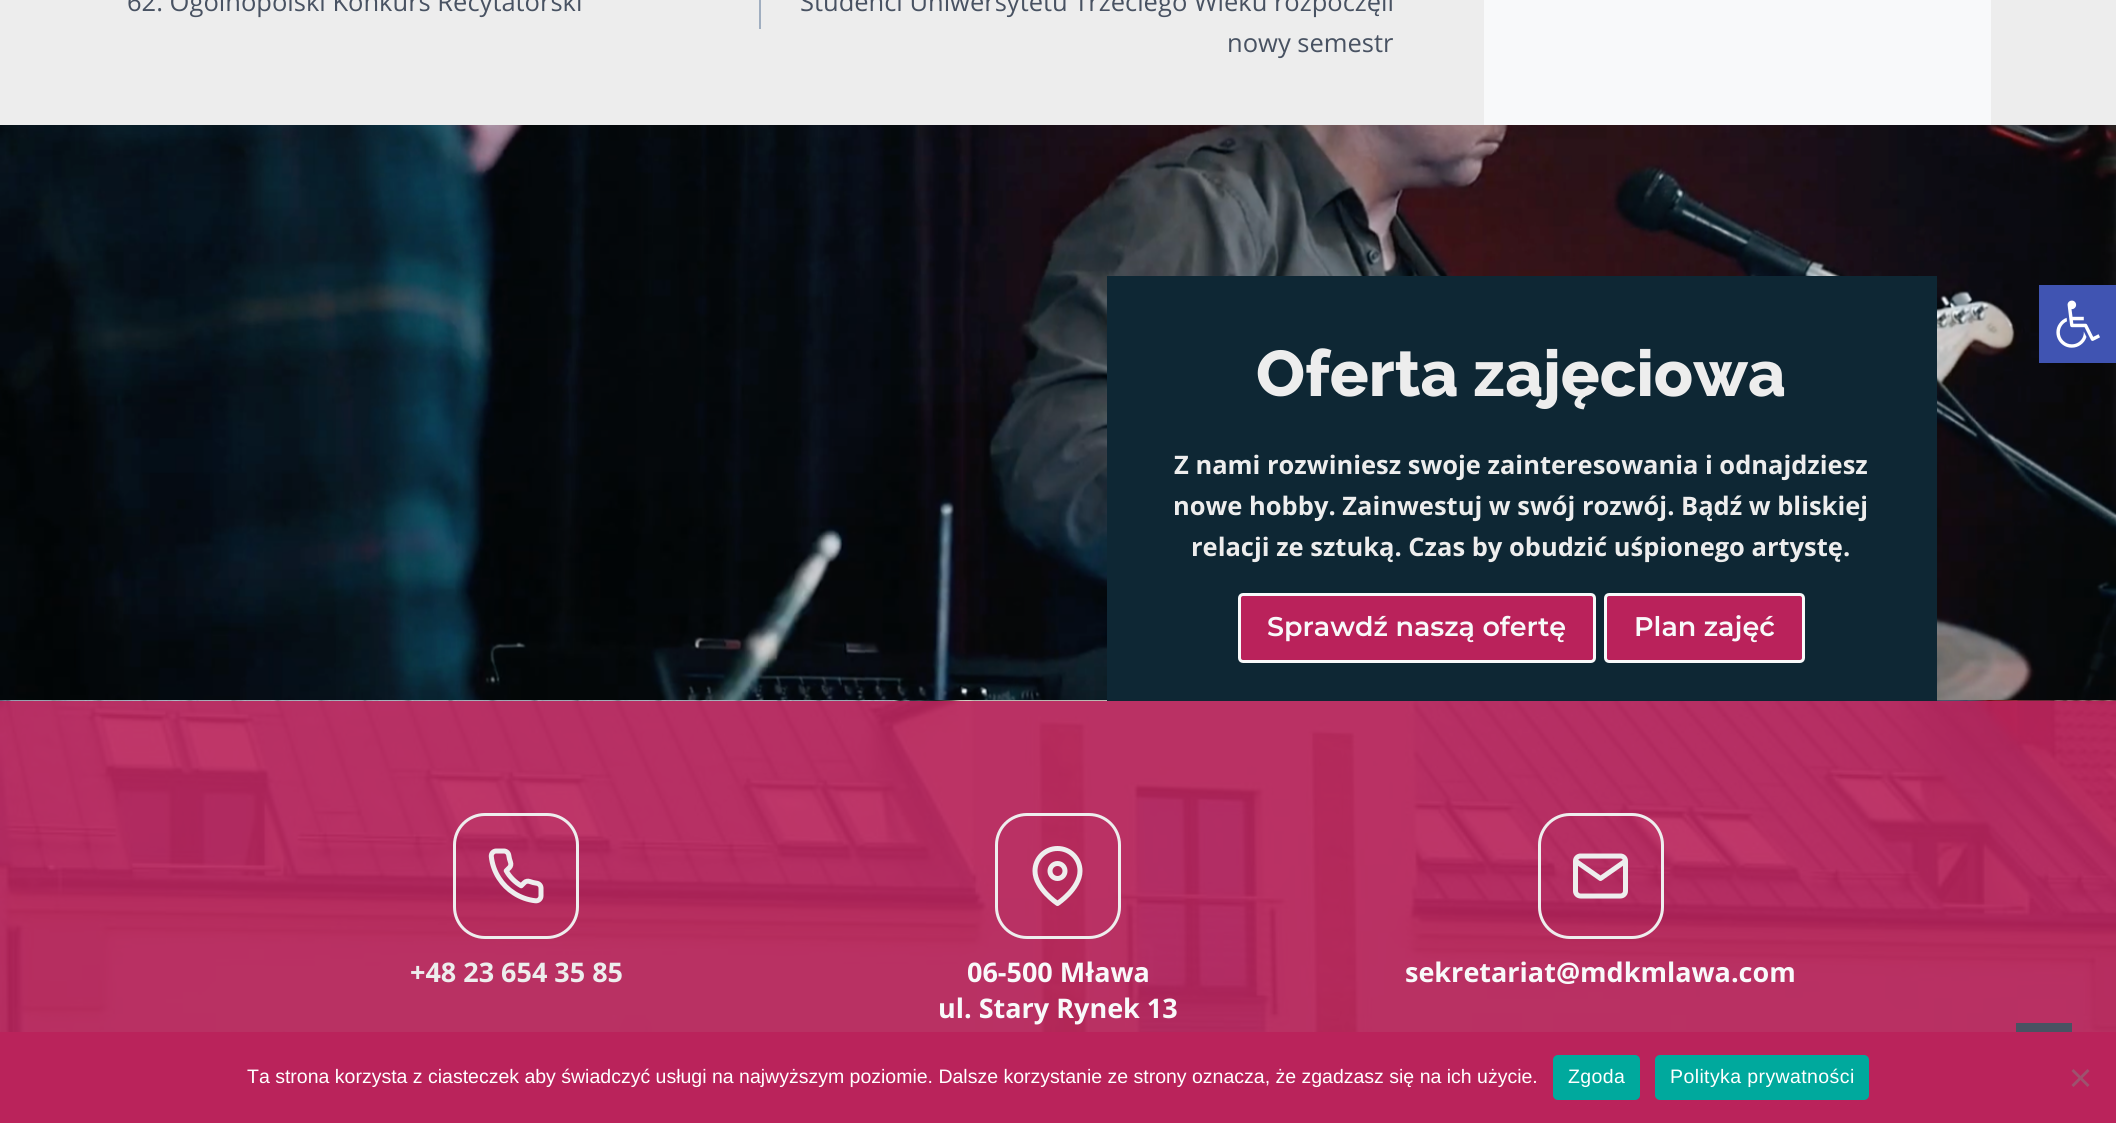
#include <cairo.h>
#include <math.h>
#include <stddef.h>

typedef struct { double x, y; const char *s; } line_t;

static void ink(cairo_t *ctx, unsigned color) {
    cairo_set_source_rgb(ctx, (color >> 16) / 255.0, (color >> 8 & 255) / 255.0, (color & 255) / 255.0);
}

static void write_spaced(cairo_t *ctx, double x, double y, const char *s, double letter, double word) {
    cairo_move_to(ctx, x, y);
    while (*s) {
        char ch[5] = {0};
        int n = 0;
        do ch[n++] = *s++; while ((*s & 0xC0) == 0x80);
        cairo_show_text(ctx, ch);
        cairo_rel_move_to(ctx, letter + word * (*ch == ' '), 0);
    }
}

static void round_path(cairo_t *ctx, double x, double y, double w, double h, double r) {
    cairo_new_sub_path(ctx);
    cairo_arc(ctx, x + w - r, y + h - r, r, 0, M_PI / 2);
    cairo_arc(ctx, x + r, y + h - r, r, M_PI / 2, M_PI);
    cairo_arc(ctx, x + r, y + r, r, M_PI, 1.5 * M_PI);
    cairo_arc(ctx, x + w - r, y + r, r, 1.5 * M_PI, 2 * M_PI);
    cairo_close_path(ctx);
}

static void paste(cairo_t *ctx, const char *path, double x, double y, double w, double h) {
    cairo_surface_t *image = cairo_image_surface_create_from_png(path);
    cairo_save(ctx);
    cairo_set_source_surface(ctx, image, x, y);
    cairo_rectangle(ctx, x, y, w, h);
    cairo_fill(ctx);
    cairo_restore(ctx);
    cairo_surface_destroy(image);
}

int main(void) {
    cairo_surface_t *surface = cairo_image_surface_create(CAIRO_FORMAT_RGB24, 2116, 1123);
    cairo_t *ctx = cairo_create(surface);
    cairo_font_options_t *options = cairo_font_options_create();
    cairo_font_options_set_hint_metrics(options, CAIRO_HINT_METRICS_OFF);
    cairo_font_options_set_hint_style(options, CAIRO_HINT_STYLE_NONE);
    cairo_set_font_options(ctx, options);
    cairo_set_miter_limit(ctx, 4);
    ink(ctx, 0xEDEDED);
    cairo_paint(ctx);
    cairo_select_font_face(ctx, "Open Sans", CAIRO_FONT_SLANT_NORMAL, CAIRO_FONT_WEIGHT_NORMAL);
    cairo_set_font_size(ctx, 25.5);
    ink(ctx, 0x485262);
    cairo_move_to(ctx, 127, 11);
    cairo_show_text(ctx, "62. Ogólnopolski Konkurs Recytatorski");
    ink(ctx, 0xA0AEC0);
    cairo_rectangle(ctx, 759, 0, 2, 29);
    cairo_fill(ctx);
    ink(ctx, 0x485262);
    cairo_move_to(ctx, 800, 11);
    cairo_show_text(ctx, "Studenci Uniwersytetu Trzeciego Wieku rozpoczęli");
    cairo_move_to(ctx, 1227, 52);
    cairo_show_text(ctx, "nowy semestr");
    ink(ctx, 0xF8F9FA);
    cairo_rectangle(ctx, 1484, 0, 507, 125);
    cairo_fill(ctx);
    paste(ctx, "media/1.png", 0, 125, 2116, 575);
    paste(ctx, "media/2.png", 0, 700, 2116, 332);
    ink(ctx, 0x0E2734);
    cairo_rectangle(ctx, 1107, 276, 830, 425);
    cairo_fill(ctx);
    cairo_select_font_face(ctx, "Raleway Thin", CAIRO_FONT_SLANT_NORMAL, CAIRO_FONT_WEIGHT_NORMAL);
    cairo_set_font_size(ctx, 64.5);
    ink(ctx, 0xEDEDED);
    cairo_move_to(ctx, 1256, 396);
    cairo_show_text(ctx, "Oferta zajęciowa");
    cairo_select_font_face(ctx, "Open Sans", CAIRO_FONT_SLANT_NORMAL, CAIRO_FONT_WEIGHT_BOLD);
    cairo_set_font_size(ctx, 25.5);
    {
        static const line_t items[] = {
            {1174, 474, "Z nami rozwiniesz swoje zainteresowania i odnajdziesz"},
            {1173, 515, "nowe hobby. Zainwestuj w swój rozwój. Bądź w bliskiej"},
            {1191, 556, "relacji ze sztuką. Czas by obudzić uśpionego artystę."},
        };
        for (size_t i = 0; i < sizeof items / sizeof *items; i++) {
            cairo_move_to(ctx, items[i].x, items[i].y);
            cairo_show_text(ctx, items[i].s);
        }
    }
    ink(ctx, 0xBA225B);
    round_path(ctx, 1239.5, 594.5, 355, 67, 3.5);
    cairo_fill_preserve(ctx);
    ink(ctx, 0xF8F9FA);
    cairo_set_line_width(ctx, 3);
    cairo_stroke(ctx);
    cairo_select_font_face(ctx, "Montserrat SemiBold", CAIRO_FONT_SLANT_NORMAL, CAIRO_FONT_WEIGHT_NORMAL);
    cairo_set_font_size(ctx, 27);
    cairo_move_to(ctx, 1267, 636);
    cairo_show_text(ctx, "Sprawdź naszą ofertę");
    ink(ctx, 0xBA225B);
    round_path(ctx, 1605.5, 594.5, 198, 67, 3.5);
    cairo_fill_preserve(ctx);
    ink(ctx, 0xF8F9FA);
    cairo_stroke(ctx);
    cairo_move_to(ctx, 1634, 636);
    cairo_show_text(ctx, "Plan zajęć");
    round_path(ctx, 454.5, 814.5, 123, 123, 30.5);
    ink(ctx, 0xEEEEEE);
    cairo_stroke(ctx);
    paste(ctx, "media/3.png", 488, 848, 56, 56);
    cairo_select_font_face(ctx, "Open Sans", CAIRO_FONT_SLANT_NORMAL, CAIRO_FONT_WEIGHT_BOLD);
    ink(ctx, 0xEDEDED);
    cairo_move_to(ctx, 410, 982);
    cairo_show_text(ctx, "+48 23 654 35 85");
    round_path(ctx, 996.5, 814.5, 123, 123, 30.5);
    ink(ctx, 0xEEEEEE);
    cairo_stroke(ctx);
    cairo_new_path(ctx);
    cairo_move_to(ctx, 1080, 871);
    cairo_curve_to(ctx, 1080, 888.5, 1057.5, 903.5, 1057.5, 903.5);
    cairo_curve_to(ctx, 1057.5, 903.5, 1035, 888.5, 1035, 871);
    cairo_curve_to(ctx, 1035, 858.5, 1045, 848.5, 1057.5, 848.5);
    cairo_curve_to(ctx, 1070, 848.5, 1080, 858.5, 1080, 871);
    cairo_close_path(ctx);
    cairo_set_line_width(ctx, 5);
    cairo_set_line_cap(ctx, CAIRO_LINE_CAP_ROUND);
    cairo_set_line_join(ctx, CAIRO_LINE_JOIN_ROUND);
    cairo_stroke(ctx);
    cairo_arc(ctx, 1057.5, 871, 7.5, 0, 2 * M_PI);
    cairo_set_line_cap(ctx, CAIRO_LINE_CAP_BUTT);
    cairo_set_line_join(ctx, CAIRO_LINE_JOIN_MITER);
    cairo_stroke(ctx);
    ink(ctx, 0xF8F9FA);
    cairo_move_to(ctx, 967, 982);
    cairo_show_text(ctx, "06-500 Mława");
    cairo_move_to(ctx, 938, 1018);
    cairo_show_text(ctx, "ul. Stary Rynek 13");
    round_path(ctx, 1539.5, 814.5, 123, 123, 30.5);
    ink(ctx, 0xEEEEEE);
    cairo_set_line_width(ctx, 3);
    cairo_stroke(ctx);
    cairo_new_path(ctx);
    cairo_move_to(ctx, 1580.5, 856);
    cairo_line_to(ctx, 1620.5, 856);
    cairo_curve_to(ctx, 1623, 856, 1625.5, 858, 1625.5, 861);
    cairo_line_to(ctx, 1625.5, 891);
    cairo_curve_to(ctx, 1625.5, 894, 1623, 896, 1620.5, 896);
    cairo_line_to(ctx, 1580.5, 896);
    cairo_curve_to(ctx, 1578, 896, 1575.5, 894, 1575.5, 891);
    cairo_line_to(ctx, 1575.5, 861);
    cairo_curve_to(ctx, 1575.5, 858, 1578, 856, 1580.5, 856);
    cairo_close_path(ctx);
    cairo_move_to(ctx, 1625.5, 861);
    cairo_line_to(ctx, 1600.5, 878.5);
    cairo_line_to(ctx, 1575.5, 861);
    cairo_set_line_width(ctx, 5);
    cairo_set_line_cap(ctx, CAIRO_LINE_CAP_ROUND);
    cairo_set_line_join(ctx, CAIRO_LINE_JOIN_ROUND);
    cairo_stroke(ctx);
    ink(ctx, 0xF8F9FA);
    cairo_move_to(ctx, 1405, 982);
    cairo_show_text(ctx, "sekretariat@mdkmlawa.com");
    ink(ctx, 0x4054B2);
    cairo_rectangle(ctx, 2039, 285, 77, 78);
    cairo_fill(ctx);
    paste(ctx, "media/4.png", 2056, 300, 44, 48);
    ink(ctx, 0x485262);
    cairo_rectangle(ctx, 2016, 1023, 56, 9);
    cairo_fill(ctx);
    ink(ctx, 0xBA235B);
    cairo_rectangle(ctx, 0, 1032, 2116, 91);
    cairo_fill(ctx);
    cairo_select_font_face(ctx, "Liberation Sans", CAIRO_FONT_SLANT_NORMAL, CAIRO_FONT_WEIGHT_NORMAL);
    cairo_set_font_size(ctx, 19.5);
    ink(ctx, 0xFFFFFF);
    cairo_move_to(ctx, 247, 1083);
    cairo_show_text(ctx, "Ta strona korzysta z ciasteczek aby świadczyć usługi na najwyższym poziomie. Dalsze korzystanie ze strony oznacza, że zgadzasz się na ich użycie.");
    ink(ctx, 0x00A99D);
    round_path(ctx, 1553, 1055, 87, 45, 5);
    cairo_fill(ctx);
    ink(ctx, 0xFFFFFF);
    write_spaced(ctx, 1568, 1083, "Zgoda", 0.4, 0);
    ink(ctx, 0x00A99D);
    round_path(ctx, 1655, 1055, 214, 45, 5);
    cairo_fill(ctx);
    ink(ctx, 0xFFFFFF);
    write_spaced(ctx, 1670, 1083, "Polityka prywatności", 0.4, 0);
    ink(ctx, 0x9D526E);
    cairo_new_path(ctx);
    cairo_move_to(ctx, 2087.5, 1069);
    cairo_line_to(ctx, 2089.5, 1071);
    cairo_line_to(ctx, 2073.5, 1087);
    cairo_line_to(ctx, 2071.5, 1085);
    cairo_close_path(ctx);
    cairo_fill(ctx);
    cairo_new_path(ctx);
    cairo_move_to(ctx, 2071.5, 1071);
    cairo_line_to(ctx, 2073.5, 1069);
    cairo_line_to(ctx, 2089.5, 1085);
    cairo_line_to(ctx, 2087.5, 1087);
    cairo_close_path(ctx);
    cairo_fill(ctx);
    cairo_surface_write_to_png(surface, "image.png");
    cairo_font_options_destroy(options);
    cairo_destroy(ctx);
    cairo_surface_destroy(surface);
    return 0;
}
